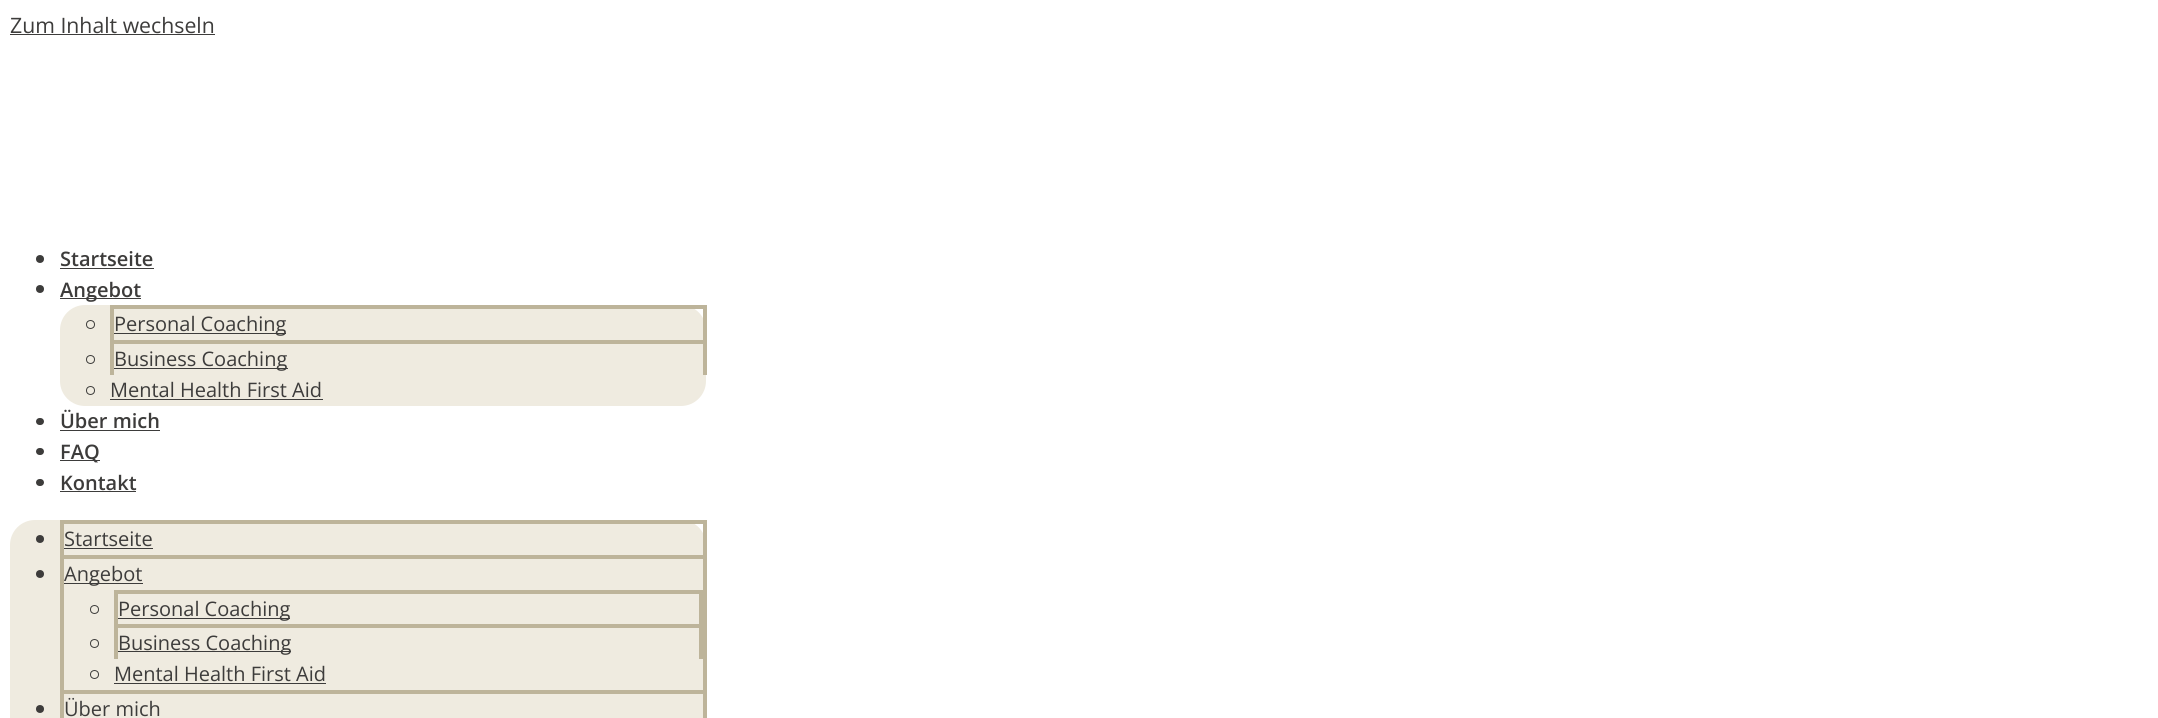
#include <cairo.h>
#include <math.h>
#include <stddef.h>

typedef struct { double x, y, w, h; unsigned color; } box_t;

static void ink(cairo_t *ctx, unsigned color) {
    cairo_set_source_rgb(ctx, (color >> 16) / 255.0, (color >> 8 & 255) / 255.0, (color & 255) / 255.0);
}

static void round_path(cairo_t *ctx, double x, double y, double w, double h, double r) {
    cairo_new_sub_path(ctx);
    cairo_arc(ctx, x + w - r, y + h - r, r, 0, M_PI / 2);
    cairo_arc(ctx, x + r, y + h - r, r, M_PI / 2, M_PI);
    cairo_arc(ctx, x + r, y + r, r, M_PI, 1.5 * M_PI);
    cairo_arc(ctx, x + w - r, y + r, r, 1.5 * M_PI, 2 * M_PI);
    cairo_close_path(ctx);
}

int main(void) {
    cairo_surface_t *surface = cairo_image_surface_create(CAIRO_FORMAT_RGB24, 2158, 718);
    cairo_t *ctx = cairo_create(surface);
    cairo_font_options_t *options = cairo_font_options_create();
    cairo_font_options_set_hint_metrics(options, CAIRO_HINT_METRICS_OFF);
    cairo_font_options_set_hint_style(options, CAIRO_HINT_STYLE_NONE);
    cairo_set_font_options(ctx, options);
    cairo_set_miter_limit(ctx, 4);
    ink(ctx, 0xFFFFFF);
    cairo_paint(ctx);
    cairo_select_font_face(ctx, "Open Sans", CAIRO_FONT_SLANT_NORMAL, CAIRO_FONT_WEIGHT_NORMAL);
    cairo_set_font_size(ctx, 21.25);
    ink(ctx, 0x3D3C3B);
    cairo_move_to(ctx, 10, 33);
    cairo_show_text(ctx, "Zum Inhalt wechseln");
    cairo_rectangle(ctx, 10, 34, 205, 1);
    cairo_fill(ctx);
    cairo_arc(ctx, 40, 259, 4, 0, 2 * M_PI);
    cairo_fill(ctx);
    cairo_select_font_face(ctx, "Open Sans SemiBold", CAIRO_FONT_SLANT_NORMAL, CAIRO_FONT_WEIGHT_NORMAL);
    cairo_set_font_size(ctx, 20);
    cairo_move_to(ctx, 60, 266);
    cairo_show_text(ctx, "Startseite");
    cairo_rectangle(ctx, 60, 268, 94, 1);
    cairo_fill(ctx);
    cairo_arc(ctx, 40, 289, 4, 0, 2 * M_PI);
    cairo_fill(ctx);
    cairo_rectangle(ctx, 60, 298, 81, 1);
    cairo_fill(ctx);
    cairo_move_to(ctx, 60, 297);
    cairo_show_text(ctx, "Angebot");
    ink(ctx, 0xEFEBE0);
    round_path(ctx, 60, 305, 646, 101, 25);
    cairo_fill(ctx);
    {
        static const box_t items[] = {
            {110, 305, 596, 4, 0xBDB49A},
            {703, 305, 4, 35, 0xBDB49A},
            {110, 305, 4, 35, 0xBDB49A},
        };
        for (size_t i = 0; i < sizeof items / sizeof *items; i++) {
            ink(ctx, items[i].color);
            cairo_rectangle(ctx, items[i].x, items[i].y, items[i].w, items[i].h);
            cairo_fill(ctx);
        }
    }
    cairo_arc(ctx, 90.5, 324.5, 4, 0, 2 * M_PI);
    ink(ctx, 0x3D3C3B);
    cairo_set_line_width(ctx, 1);
    cairo_stroke(ctx);
    cairo_rectangle(ctx, 114, 333, 172, 1);
    cairo_fill(ctx);
    cairo_select_font_face(ctx, "Open Sans", CAIRO_FONT_SLANT_NORMAL, CAIRO_FONT_WEIGHT_NORMAL);
    cairo_move_to(ctx, 114, 331);
    cairo_show_text(ctx, "Personal Coaching");
    {
        static const box_t items[] = {
            {110, 340, 596, 4, 0xBDB49A},
            {703, 340, 4, 35, 0xBDB49A},
            {110, 340, 4, 35, 0xBDB49A},
        };
        for (size_t i = 0; i < sizeof items / sizeof *items; i++) {
            ink(ctx, items[i].color);
            cairo_rectangle(ctx, items[i].x, items[i].y, items[i].w, items[i].h);
            cairo_fill(ctx);
        }
    }
    cairo_new_path(ctx);
    cairo_arc(ctx, 90.5, 359.5, 4, 0, 2 * M_PI);
    ink(ctx, 0x3D3C3B);
    cairo_stroke(ctx);
    cairo_rectangle(ctx, 114, 368, 174, 1);
    cairo_fill(ctx);
    cairo_move_to(ctx, 114, 366);
    cairo_show_text(ctx, "Business Coaching");
    cairo_new_path(ctx);
    cairo_arc(ctx, 90.5, 390.5, 4, 0, 2 * M_PI);
    cairo_stroke(ctx);
    cairo_move_to(ctx, 110, 397);
    cairo_show_text(ctx, "Mental Health First Aid");
    cairo_rectangle(ctx, 110, 399, 213, 1);
    cairo_fill(ctx);
    round_path(ctx, 36, 418, 8, 7, 3.5);
    cairo_fill(ctx);
    cairo_select_font_face(ctx, "Open Sans SemiBold", CAIRO_FONT_SLANT_NORMAL, CAIRO_FONT_WEIGHT_NORMAL);
    cairo_move_to(ctx, 60, 428);
    cairo_show_text(ctx, "Über mich");
    cairo_rectangle(ctx, 60, 430, 100, 1);
    cairo_fill(ctx);
    round_path(ctx, 36, 448, 8, 7, 3.5);
    cairo_fill(ctx);
    cairo_rectangle(ctx, 60, 460, 40, 1);
    cairo_fill(ctx);
    cairo_move_to(ctx, 60, 459);
    cairo_show_text(ctx, "FAQ");
    round_path(ctx, 36, 479, 8, 7, 3.5);
    cairo_fill(ctx);
    cairo_move_to(ctx, 60, 490);
    cairo_show_text(ctx, "Kontakt");
    cairo_rectangle(ctx, 60, 491, 76, 1);
    cairo_fill(ctx);
    ink(ctx, 0xEFEBE0);
    round_path(ctx, 10, 520, 696, 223, 25);
    cairo_fill(ctx);
    {
        static const box_t items[] = {
            {60, 520, 646, 4, 0xBDB49A},
            {703, 520, 4, 35, 0xBDB49A},
            {60, 520, 4, 35, 0xBDB49A},
        };
        for (size_t i = 0; i < sizeof items / sizeof *items; i++) {
            ink(ctx, items[i].color);
            cairo_rectangle(ctx, items[i].x, items[i].y, items[i].w, items[i].h);
            cairo_fill(ctx);
        }
    }
    ink(ctx, 0x3D3C3B);
    cairo_arc(ctx, 40, 539, 4, 0, 2 * M_PI);
    cairo_fill(ctx);
    cairo_select_font_face(ctx, "Open Sans", CAIRO_FONT_SLANT_NORMAL, CAIRO_FONT_WEIGHT_NORMAL);
    cairo_move_to(ctx, 64, 546);
    cairo_show_text(ctx, "Startseite");
    {
        static const box_t items[] = {
            {64, 548, 89, 1, 0x3D3C3B},
            {60, 555, 646, 4, 0xBDB49A},
            {703, 555, 4, 135, 0xBDB49A},
            {60, 555, 4, 135, 0xBDB49A},
        };
        for (size_t i = 0; i < sizeof items / sizeof *items; i++) {
            ink(ctx, items[i].color);
            cairo_rectangle(ctx, items[i].x, items[i].y, items[i].w, items[i].h);
            cairo_fill(ctx);
        }
    }
    ink(ctx, 0x3D3C3B);
    cairo_new_path(ctx);
    cairo_arc(ctx, 40, 574, 4, 0, 2 * M_PI);
    cairo_fill(ctx);
    cairo_rectangle(ctx, 64, 583, 79, 1);
    cairo_fill(ctx);
    cairo_move_to(ctx, 64, 581);
    cairo_show_text(ctx, "Angebot");
    {
        static const box_t items[] = {
            {114, 590, 589, 4, 0xBDB49A},
            {699, 590, 4, 34, 0xBDB49A},
            {114, 590, 4, 34, 0xBDB49A},
        };
        for (size_t i = 0; i < sizeof items / sizeof *items; i++) {
            ink(ctx, items[i].color);
            cairo_rectangle(ctx, items[i].x, items[i].y, items[i].w, items[i].h);
            cairo_fill(ctx);
        }
    }
    cairo_new_path(ctx);
    cairo_arc(ctx, 94.5, 609.5, 4, 0, 2 * M_PI);
    ink(ctx, 0x3D3C3B);
    cairo_stroke(ctx);
    cairo_rectangle(ctx, 118, 618, 172, 1);
    cairo_fill(ctx);
    cairo_move_to(ctx, 118, 616);
    cairo_show_text(ctx, "Personal Coaching");
    {
        static const box_t items[] = {
            {114, 624, 589, 4, 0xBDB49A},
            {699, 624, 4, 35, 0xBDB49A},
            {114, 624, 4, 35, 0xBDB49A},
        };
        for (size_t i = 0; i < sizeof items / sizeof *items; i++) {
            ink(ctx, items[i].color);
            cairo_rectangle(ctx, items[i].x, items[i].y, items[i].w, items[i].h);
            cairo_fill(ctx);
        }
    }
    cairo_new_path(ctx);
    cairo_arc(ctx, 94.5, 643.5, 4, 0, 2 * M_PI);
    ink(ctx, 0x3D3C3B);
    cairo_stroke(ctx);
    cairo_rectangle(ctx, 118, 651, 173, 1);
    cairo_fill(ctx);
    cairo_move_to(ctx, 118, 650);
    cairo_show_text(ctx, "Business Coaching");
    cairo_new_path(ctx);
    cairo_arc(ctx, 94.5, 674.5, 4, 0, 2 * M_PI);
    cairo_stroke(ctx);
    cairo_move_to(ctx, 114, 681);
    cairo_show_text(ctx, "Mental Health First Aid");
    {
        static const box_t items[] = {
            {114, 683, 212, 1, 0x3D3C3B},
            {60, 690, 646, 4, 0xBDB49A},
            {703, 690, 4, 28, 0xBDB49A},
            {60, 690, 4, 28, 0xBDB49A},
        };
        for (size_t i = 0; i < sizeof items / sizeof *items; i++) {
            ink(ctx, items[i].color);
            cairo_rectangle(ctx, items[i].x, items[i].y, items[i].w, items[i].h);
            cairo_fill(ctx);
        }
    }
    ink(ctx, 0x3D3C3B);
    cairo_new_path(ctx);
    cairo_arc(ctx, 40, 709, 4, 0, 2 * M_PI);
    cairo_fill(ctx);
    cairo_move_to(ctx, 64, 716);
    cairo_show_text(ctx, "Über mich");
    cairo_surface_write_to_png(surface, "image.png");
    cairo_font_options_destroy(options);
    cairo_destroy(ctx);
    cairo_surface_destroy(surface);
    return 0;
}
